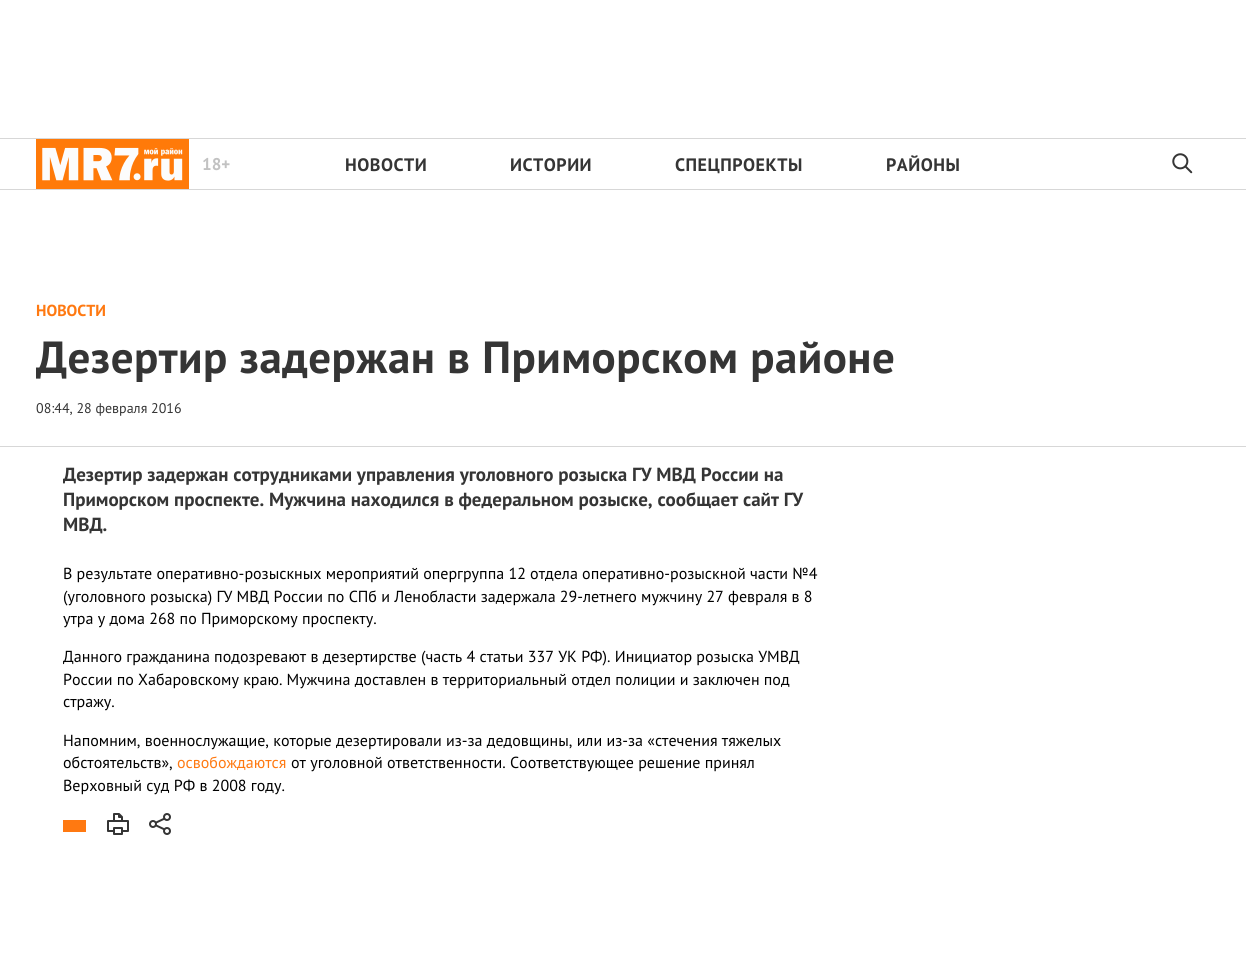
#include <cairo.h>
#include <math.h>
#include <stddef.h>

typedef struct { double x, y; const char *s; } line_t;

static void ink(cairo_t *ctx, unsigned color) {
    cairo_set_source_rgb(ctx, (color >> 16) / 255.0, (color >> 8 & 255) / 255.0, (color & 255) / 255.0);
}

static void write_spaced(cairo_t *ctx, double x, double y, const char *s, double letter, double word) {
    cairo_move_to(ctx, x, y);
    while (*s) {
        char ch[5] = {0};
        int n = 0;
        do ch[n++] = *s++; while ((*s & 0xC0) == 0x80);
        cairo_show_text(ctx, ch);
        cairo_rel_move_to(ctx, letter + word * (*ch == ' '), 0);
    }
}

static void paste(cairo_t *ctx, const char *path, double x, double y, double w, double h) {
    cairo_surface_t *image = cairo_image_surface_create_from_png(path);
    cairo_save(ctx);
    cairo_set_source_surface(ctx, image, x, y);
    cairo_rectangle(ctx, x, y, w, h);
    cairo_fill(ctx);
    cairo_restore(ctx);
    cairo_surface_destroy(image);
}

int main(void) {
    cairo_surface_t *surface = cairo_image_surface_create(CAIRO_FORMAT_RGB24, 1246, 965);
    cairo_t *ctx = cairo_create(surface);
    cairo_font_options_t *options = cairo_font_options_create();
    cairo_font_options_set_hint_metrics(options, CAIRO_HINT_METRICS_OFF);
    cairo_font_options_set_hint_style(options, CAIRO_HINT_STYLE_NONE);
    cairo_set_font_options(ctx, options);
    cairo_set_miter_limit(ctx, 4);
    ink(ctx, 0xFFFFFF);
    cairo_paint(ctx);
    ink(ctx, 0xD7D7D7);
    cairo_rectangle(ctx, 0, 138, 1246, 1);
    cairo_fill(ctx);
    cairo_rectangle(ctx, 0, 189, 1246, 1);
    cairo_fill(ctx);
    paste(ctx, "media/1.png", 36, 139, 153, 50);
    cairo_select_font_face(ctx, "PT Sans", CAIRO_FONT_SLANT_NORMAL, CAIRO_FONT_WEIGHT_BOLD);
    cairo_set_font_size(ctx, 17);
    ink(ctx, 0xC2C2C2);
    cairo_move_to(ctx, 202, 170);
    cairo_show_text(ctx, "18+");
    cairo_set_font_size(ctx, 18);
    ink(ctx, 0x353535);
    {
        static const line_t items[] = {
            {345, 171, "НОВОСТИ"},
            {510, 171, "ИСТОРИИ"},
            {675, 171, "СПЕЦПРОЕКТЫ"},
            {886, 171, "РАЙОНЫ"},
        };
        for (size_t i = 0; i < sizeof items / sizeof *items; i++) {
            write_spaced(ctx, items[i].x, items[i].y, items[i].s, 0.5, 0);
        }
    }
    paste(ctx, "media/2.png", 1172, 153, 21, 21);
    ink(ctx, 0xD7D7D7);
    cairo_rectangle(ctx, 0, 446, 1246, 1);
    cairo_fill(ctx);
    cairo_set_font_size(ctx, 16);
    ink(ctx, 0xFF7911);
    cairo_move_to(ctx, 36, 316);
    cairo_show_text(ctx, "НОВОСТИ");
    cairo_set_font_size(ctx, 45);
    ink(ctx, 0x353535);
    write_spaced(ctx, 36, 373, "Дезертир задержан в Приморском районе", 0.45, 0);
    cairo_select_font_face(ctx, "PT Sans", CAIRO_FONT_SLANT_NORMAL, CAIRO_FONT_WEIGHT_NORMAL);
    cairo_set_font_size(ctx, 14);
    cairo_move_to(ctx, 36, 413);
    cairo_show_text(ctx, "08:44, 28 февраля 2016");
    cairo_select_font_face(ctx, "PT Sans", CAIRO_FONT_SLANT_NORMAL, CAIRO_FONT_WEIGHT_BOLD);
    cairo_set_font_size(ctx, 19);
    {
        static const line_t items[] = {
            {63, 481, "Дезертир задержан сотрудниками управления уголовного розыска ГУ МВД России на"},
            {63, 506, "Приморском проспекте. Мужчина находился в федеральном розыске, сообщает сайт ГУ"},
            {63, 531, "МВД."},
        };
        for (size_t i = 0; i < sizeof items / sizeof *items; i++) {
            cairo_move_to(ctx, items[i].x, items[i].y);
            cairo_show_text(ctx, items[i].s);
        }
    }
    cairo_select_font_face(ctx, "PT Sans", CAIRO_FONT_SLANT_NORMAL, CAIRO_FONT_WEIGHT_NORMAL);
    cairo_set_font_size(ctx, 16);
    ink(ctx, 0x000000);
    {
        static const line_t items[] = {
            {63, 579, "В результате оперативно-розыскных мероприятий опергруппа 12 отдела оперативно-розыскной части №4"},
            {63, 602, "(уголовного розыска) ГУ МВД России по СПб и Ленобласти задержала 29-летнего мужчину 27 февраля в 8"},
            {63, 624, "утра у дома 268 по Приморскому проспекту."},
            {63, 662, "Данного гражданина подозревают в дезертирстве (часть 4 статьи 337 УК РФ). Инициатор розыска УМВД"},
            {63, 685, "России по Хабаровскому краю. Мужчина доставлен в территориальный отдел полиции и заключен под"},
            {63, 707, "стражу."},
            {63, 746, "Напомним, военнослужащие, которые дезертировали из-за дедовщины, или из-за «стечения тяжелых"},
            {63, 768, "обстоятельств»,"},
        };
        for (size_t i = 0; i < sizeof items / sizeof *items; i++) {
            cairo_move_to(ctx, items[i].x, items[i].y);
            cairo_show_text(ctx, items[i].s);
        }
    }
    ink(ctx, 0xFF7911);
    cairo_move_to(ctx, 177, 768);
    cairo_show_text(ctx, "освобождаются");
    ink(ctx, 0x000000);
    cairo_move_to(ctx, 291, 768);
    cairo_show_text(ctx, "от уголовной ответственности. Соответствующее решение принял");
    cairo_move_to(ctx, 63, 791);
    cairo_show_text(ctx, "Верховный суд РФ в 2008 году.");
    ink(ctx, 0xFF7911);
    cairo_rectangle(ctx, 63, 820, 23, 12);
    cairo_fill(ctx);
    paste(ctx, "media/3.png", 107, 813, 22, 22);
    paste(ctx, "media/4.png", 149, 813, 22, 22);
    cairo_surface_write_to_png(surface, "image.png");
    cairo_font_options_destroy(options);
    cairo_destroy(ctx);
    cairo_surface_destroy(surface);
    return 0;
}
